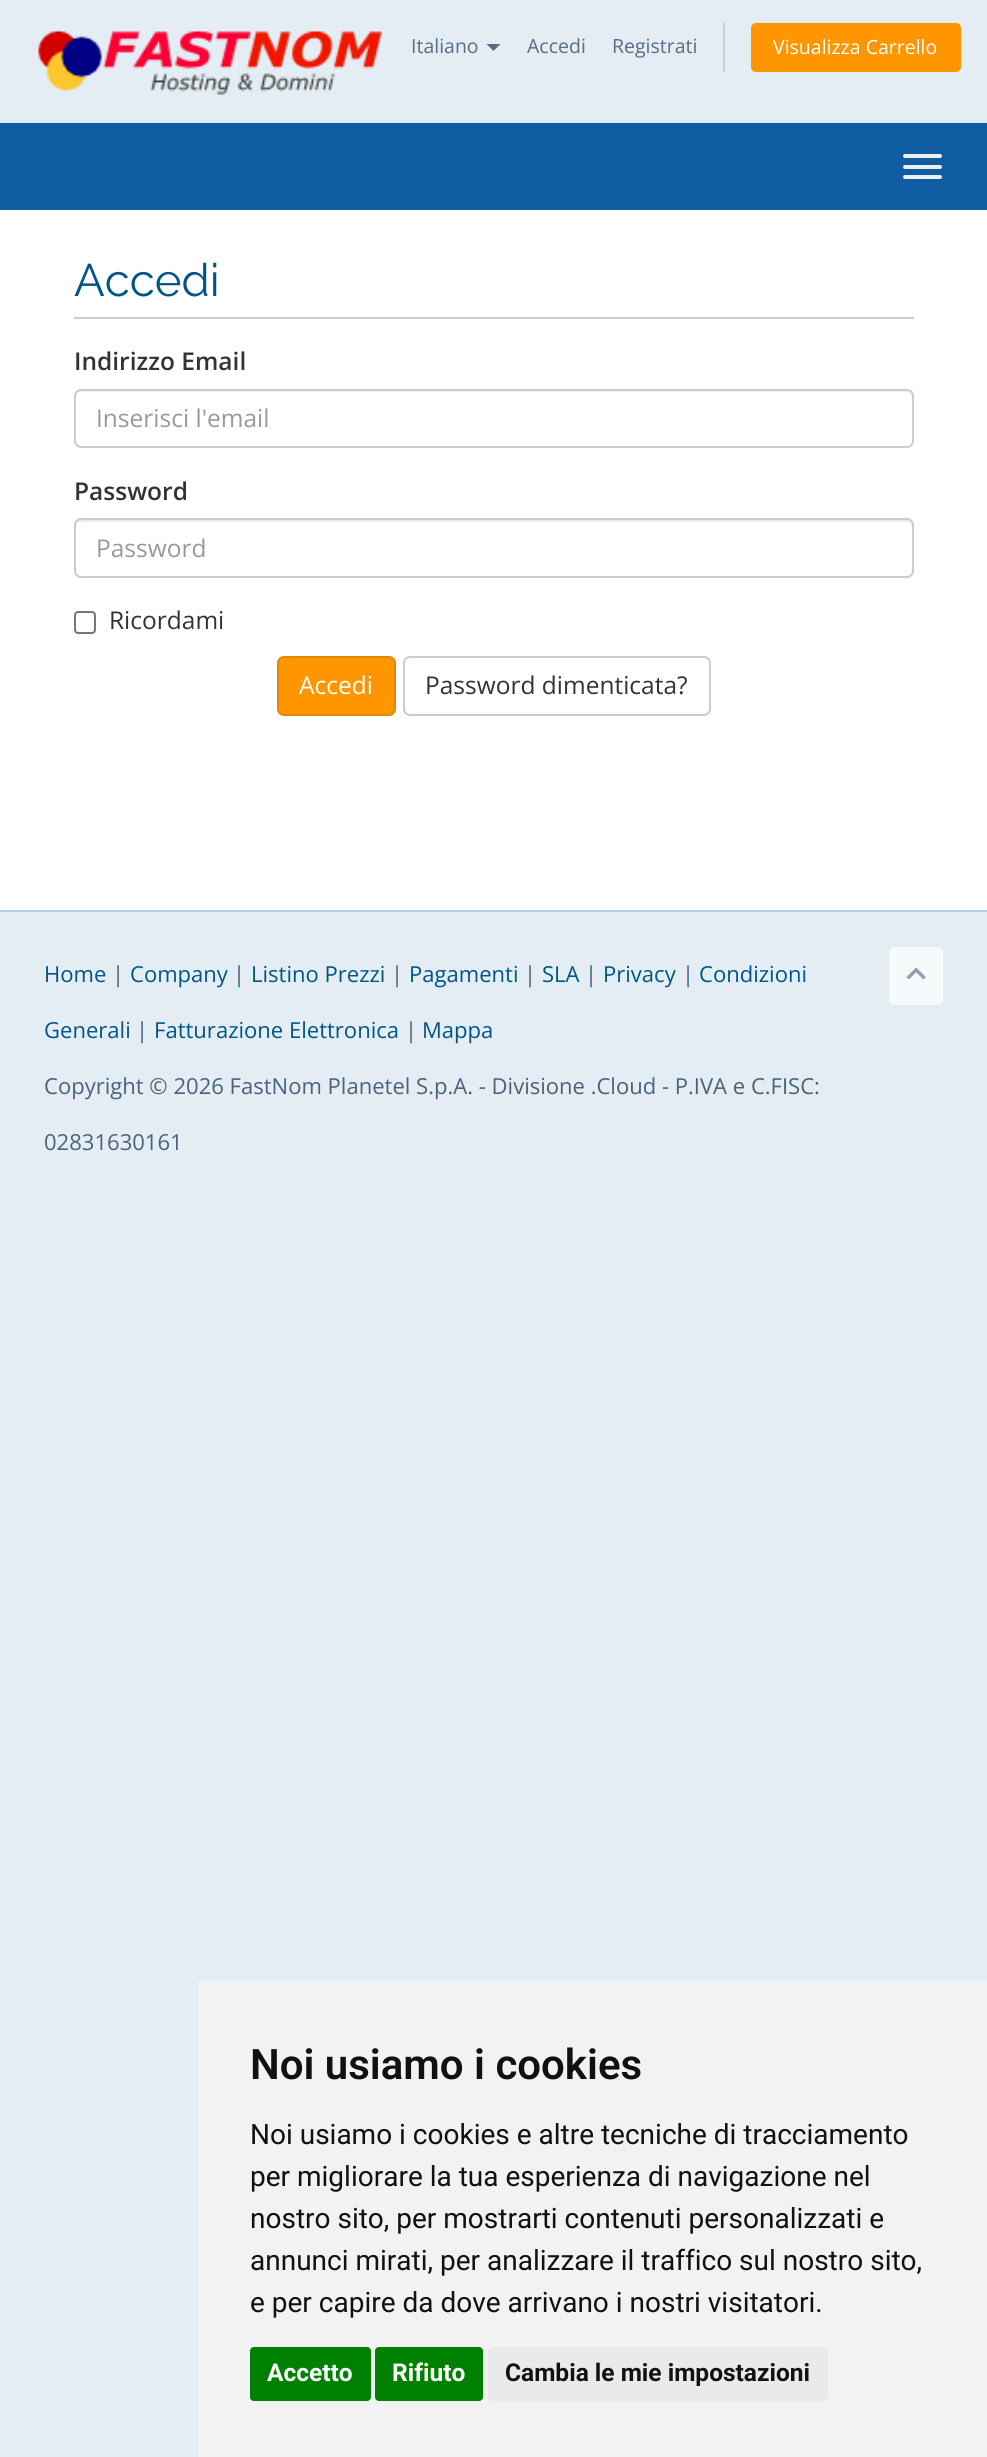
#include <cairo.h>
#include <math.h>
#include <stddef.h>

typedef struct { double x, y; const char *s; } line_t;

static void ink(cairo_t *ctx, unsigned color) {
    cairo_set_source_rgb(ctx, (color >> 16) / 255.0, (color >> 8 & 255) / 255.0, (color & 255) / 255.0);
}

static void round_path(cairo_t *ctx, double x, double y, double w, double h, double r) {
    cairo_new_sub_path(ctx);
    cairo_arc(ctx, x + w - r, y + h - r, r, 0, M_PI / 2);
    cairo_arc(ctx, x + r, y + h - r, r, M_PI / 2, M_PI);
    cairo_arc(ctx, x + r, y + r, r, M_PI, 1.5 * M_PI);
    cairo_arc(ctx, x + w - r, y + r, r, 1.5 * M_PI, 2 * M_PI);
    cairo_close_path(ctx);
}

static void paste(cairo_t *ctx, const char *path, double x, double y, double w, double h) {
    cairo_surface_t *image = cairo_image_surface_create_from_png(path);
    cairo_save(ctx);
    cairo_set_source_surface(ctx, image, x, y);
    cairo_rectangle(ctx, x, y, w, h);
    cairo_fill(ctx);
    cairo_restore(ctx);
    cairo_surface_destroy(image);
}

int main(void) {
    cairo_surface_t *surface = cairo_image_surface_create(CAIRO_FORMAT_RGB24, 987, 2457);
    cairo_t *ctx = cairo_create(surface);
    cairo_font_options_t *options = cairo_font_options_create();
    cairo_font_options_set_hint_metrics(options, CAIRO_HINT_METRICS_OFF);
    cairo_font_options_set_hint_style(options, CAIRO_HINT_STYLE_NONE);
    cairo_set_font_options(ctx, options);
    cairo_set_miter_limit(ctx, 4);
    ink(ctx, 0xE3EDF3);
    cairo_paint(ctx);
    paste(ctx, "media/1.png", 38, 29, 344, 66);
    cairo_select_font_face(ctx, "Open Sans", CAIRO_FONT_SLANT_NORMAL, CAIRO_FONT_WEIGHT_NORMAL);
    cairo_set_font_size(ctx, 19.5);
    ink(ctx, 0x546E85);
    cairo_move_to(ctx, 411, 53);
    cairo_show_text(ctx, "Italiano");
    cairo_new_path(ctx);
    cairo_move_to(ctx, 486.5, 44);
    cairo_line_to(ctx, 500.5, 44);
    cairo_line_to(ctx, 493.5, 51);
    cairo_close_path(ctx);
    cairo_fill(ctx);
    cairo_move_to(ctx, 527, 53);
    cairo_show_text(ctx, "Accedi");
    cairo_move_to(ctx, 612, 53);
    cairo_show_text(ctx, "Registrati");
    ink(ctx, 0xC7D0E8);
    cairo_rectangle(ctx, 723, 23, 2, 49);
    cairo_fill(ctx);
    ink(ctx, 0xFF9600);
    round_path(ctx, 751, 23, 210, 49, 5);
    cairo_fill(ctx);
    ink(ctx, 0xFFFFFF);
    cairo_move_to(ctx, 773, 54);
    cairo_show_text(ctx, "Visualizza Carrello");
    ink(ctx, 0x0F5CA2);
    cairo_rectangle(ctx, 0, 123, 987, 87);
    cairo_fill(ctx);
    ink(ctx, 0xEEEEEE);
    round_path(ctx, 903, 154, 39, 4, 2);
    cairo_fill(ctx);
    round_path(ctx, 903, 165, 39, 4, 2);
    cairo_fill(ctx);
    round_path(ctx, 903, 175, 39, 4, 2);
    cairo_fill(ctx);
    ink(ctx, 0xFFFFFF);
    cairo_rectangle(ctx, 0, 210, 987, 700);
    cairo_fill(ctx);
    ink(ctx, 0xCCCCCC);
    cairo_rectangle(ctx, 74, 317, 840, 2);
    cairo_fill(ctx);
    cairo_select_font_face(ctx, "Raleway", CAIRO_FONT_SLANT_NORMAL, CAIRO_FONT_WEIGHT_NORMAL);
    cairo_set_font_size(ctx, 45.5);
    ink(ctx, 0x005588);
    cairo_move_to(ctx, 74, 296);
    cairo_show_text(ctx, "Accedi");
    cairo_select_font_face(ctx, "Open Sans SemiBold", CAIRO_FONT_SLANT_NORMAL, CAIRO_FONT_WEIGHT_NORMAL);
    cairo_set_font_size(ctx, 24.5);
    ink(ctx, 0x333333);
    cairo_move_to(ctx, 74, 370);
    cairo_show_text(ctx, "Indirizzo Email");
    ink(ctx, 0xECECEC);
    cairo_new_path(ctx);
    cairo_move_to(ctx, 80, 392);
    cairo_line_to(ctx, 906, 392);
    cairo_curve_to(ctx, 909, 392, 912, 394, 912, 397);
    cairo_line_to(ctx, 912, 395);
    cairo_curve_to(ctx, 912, 392, 910, 390, 907, 390);
    cairo_line_to(ctx, 80, 390);
    cairo_curve_to(ctx, 77, 390, 75, 392, 75, 395);
    cairo_line_to(ctx, 75, 397);
    cairo_curve_to(ctx, 75, 394, 78, 392, 80, 392);
    cairo_close_path(ctx);
    cairo_fill(ctx);
    round_path(ctx, 75, 390, 838, 57, 6);
    ink(ctx, 0xCCCCCC);
    cairo_stroke(ctx);
    cairo_select_font_face(ctx, "Open Sans", CAIRO_FONT_SLANT_NORMAL, CAIRO_FONT_WEIGHT_NORMAL);
    ink(ctx, 0x999999);
    cairo_move_to(ctx, 96, 427);
    cairo_show_text(ctx, "Inserisci l'email");
    cairo_select_font_face(ctx, "Open Sans SemiBold", CAIRO_FONT_SLANT_NORMAL, CAIRO_FONT_WEIGHT_NORMAL);
    ink(ctx, 0x333333);
    cairo_move_to(ctx, 74, 500);
    cairo_show_text(ctx, "Password");
    ink(ctx, 0xECECEC);
    cairo_new_path(ctx);
    cairo_move_to(ctx, 80, 522);
    cairo_line_to(ctx, 906, 522);
    cairo_curve_to(ctx, 909, 522, 912, 524, 912, 527);
    cairo_line_to(ctx, 912, 525);
    cairo_curve_to(ctx, 912, 522, 910, 520, 907, 520);
    cairo_line_to(ctx, 80, 520);
    cairo_curve_to(ctx, 77, 520, 75, 522, 75, 525);
    cairo_line_to(ctx, 75, 527);
    cairo_curve_to(ctx, 75, 524, 78, 522, 80, 522);
    cairo_close_path(ctx);
    cairo_fill(ctx);
    round_path(ctx, 75, 519, 838, 58, 6);
    ink(ctx, 0xCCCCCC);
    cairo_stroke(ctx);
    cairo_select_font_face(ctx, "Open Sans", CAIRO_FONT_SLANT_NORMAL, CAIRO_FONT_WEIGHT_NORMAL);
    ink(ctx, 0x999999);
    cairo_move_to(ctx, 96, 557);
    cairo_show_text(ctx, "Password");
    round_path(ctx, 75, 612, 20, 21, 3);
    ink(ctx, 0x767676);
    cairo_stroke(ctx);
    ink(ctx, 0x333333);
    cairo_move_to(ctx, 109, 629);
    cairo_show_text(ctx, "Ricordami");
    ink(ctx, 0xFF9600);
    round_path(ctx, 278, 657, 117, 58, 6);
    cairo_fill_preserve(ctx);
    ink(ctx, 0xE68700);
    cairo_stroke(ctx);
    ink(ctx, 0xFFFFFF);
    cairo_move_to(ctx, 299, 694);
    cairo_show_text(ctx, "Accedi");
    round_path(ctx, 404, 657, 306, 58, 6);
    ink(ctx, 0xCCCCCC);
    cairo_stroke(ctx);
    ink(ctx, 0x333333);
    cairo_move_to(ctx, 425, 694);
    cairo_show_text(ctx, "Password dimenticata?");
    ink(ctx, 0xB9D0E3);
    cairo_rectangle(ctx, 0, 910, 987, 2);
    cairo_fill(ctx);
    cairo_set_font_size(ctx, 22.05);
    ink(ctx, 0x005588);
    cairo_move_to(ctx, 44, 982);
    cairo_show_text(ctx, "Home");
    ink(ctx, 0x49637A);
    cairo_move_to(ctx, 112, 982);
    cairo_show_text(ctx, "|");
    ink(ctx, 0x005588);
    cairo_move_to(ctx, 130, 982);
    cairo_show_text(ctx, "Company");
    ink(ctx, 0x49637A);
    cairo_move_to(ctx, 233, 982);
    cairo_show_text(ctx, "|");
    ink(ctx, 0x005588);
    cairo_move_to(ctx, 251, 982);
    cairo_show_text(ctx, "Listino Prezzi");
    ink(ctx, 0x49637A);
    cairo_move_to(ctx, 391, 982);
    cairo_show_text(ctx, "|");
    ink(ctx, 0x005588);
    cairo_move_to(ctx, 409, 982);
    cairo_show_text(ctx, "Pagamenti");
    ink(ctx, 0x49637A);
    cairo_move_to(ctx, 524, 982);
    cairo_show_text(ctx, "|");
    ink(ctx, 0x005588);
    cairo_move_to(ctx, 542, 982);
    cairo_show_text(ctx, "SLA");
    ink(ctx, 0x49637A);
    cairo_move_to(ctx, 585, 982);
    cairo_show_text(ctx, "|");
    ink(ctx, 0x005588);
    cairo_move_to(ctx, 603, 982);
    cairo_show_text(ctx, "Privacy");
    ink(ctx, 0x49637A);
    cairo_move_to(ctx, 682, 982);
    cairo_show_text(ctx, "|");
    ink(ctx, 0x005588);
    cairo_move_to(ctx, 699, 982);
    cairo_show_text(ctx, "Condizioni");
    cairo_move_to(ctx, 44, 1038);
    cairo_show_text(ctx, "Generali");
    ink(ctx, 0x49637A);
    cairo_move_to(ctx, 136, 1038);
    cairo_show_text(ctx, "|");
    ink(ctx, 0x005588);
    cairo_move_to(ctx, 154, 1038);
    cairo_show_text(ctx, "Fatturazione Elettronica");
    ink(ctx, 0x49637A);
    cairo_move_to(ctx, 405, 1038);
    cairo_show_text(ctx, "|");
    ink(ctx, 0x005588);
    cairo_move_to(ctx, 422, 1038);
    cairo_show_text(ctx, "Mappa");
    ink(ctx, 0xF7FAFB);
    round_path(ctx, 889, 947, 54, 58, 5);
    cairo_fill(ctx);
    paste(ctx, "media/2.png", 906, 967, 20, 13);
    ink(ctx, 0x49637A);
    cairo_move_to(ctx, 44, 1094);
    cairo_show_text(ctx, "Copyright © 2026 FastNom Planetel S.p.A. - Divisione .Cloud - P.IVA e C.FISC:");
    cairo_move_to(ctx, 44, 1150);
    cairo_show_text(ctx, "02831630161");
    ink(ctx, 0xF2F2F2);
    cairo_rectangle(ctx, 198, 1981, 789, 476);
    cairo_fill(ctx);
    cairo_select_font_face(ctx, "Roboto SemiBold", CAIRO_FONT_SLANT_NORMAL, CAIRO_FONT_WEIGHT_NORMAL);
    cairo_set_font_size(ctx, 42);
    ink(ctx, 0x111111);
    cairo_move_to(ctx, 250, 2079);
    cairo_show_text(ctx, "Noi usiamo i cookies");
    cairo_select_font_face(ctx, "Roboto", CAIRO_FONT_SLANT_NORMAL, CAIRO_FONT_WEIGHT_NORMAL);
    cairo_set_font_size(ctx, 28);
    {
        static const line_t items[] = {
            {250, 2144, "Noi usiamo i cookies e altre tecniche di tracciamento"},
            {250, 2186, "per migliorare la tua esperienza di navigazione nel"},
            {250, 2228, "nostro sito, per mostrarti contenuti personalizzati e"},
            {250, 2270, "annunci mirati, per analizzare il traffico sul nostro sito,"},
            {250, 2312, "e per capire da dove arrivano i nostri visitatori."},
        };
        for (size_t i = 0; i < sizeof items / sizeof *items; i++) {
            cairo_move_to(ctx, items[i].x, items[i].y);
            cairo_show_text(ctx, items[i].s);
        }
    }
    ink(ctx, 0x008000);
    round_path(ctx, 250, 2347, 121, 54, 4);
    cairo_fill(ctx);
    cairo_select_font_face(ctx, "Roboto", CAIRO_FONT_SLANT_NORMAL, CAIRO_FONT_WEIGHT_BOLD);
    cairo_set_font_size(ctx, 24.5);
    ink(ctx, 0xFFFFFF);
    cairo_move_to(ctx, 267, 2381);
    cairo_show_text(ctx, "Accetto");
    ink(ctx, 0x008000);
    round_path(ctx, 375, 2347, 108, 54, 4);
    cairo_fill(ctx);
    ink(ctx, 0xFFFFFF);
    cairo_move_to(ctx, 392, 2381);
    cairo_show_text(ctx, "Rifiuto");
    ink(ctx, 0xEAEAEA);
    round_path(ctx, 488, 2347, 340, 54, 4);
    cairo_fill(ctx);
    ink(ctx, 0x111111);
    cairo_move_to(ctx, 505, 2381);
    cairo_show_text(ctx, "Cambia le mie impostazioni");
    cairo_surface_write_to_png(surface, "image.png");
    cairo_font_options_destroy(options);
    cairo_destroy(ctx);
    cairo_surface_destroy(surface);
    return 0;
}
